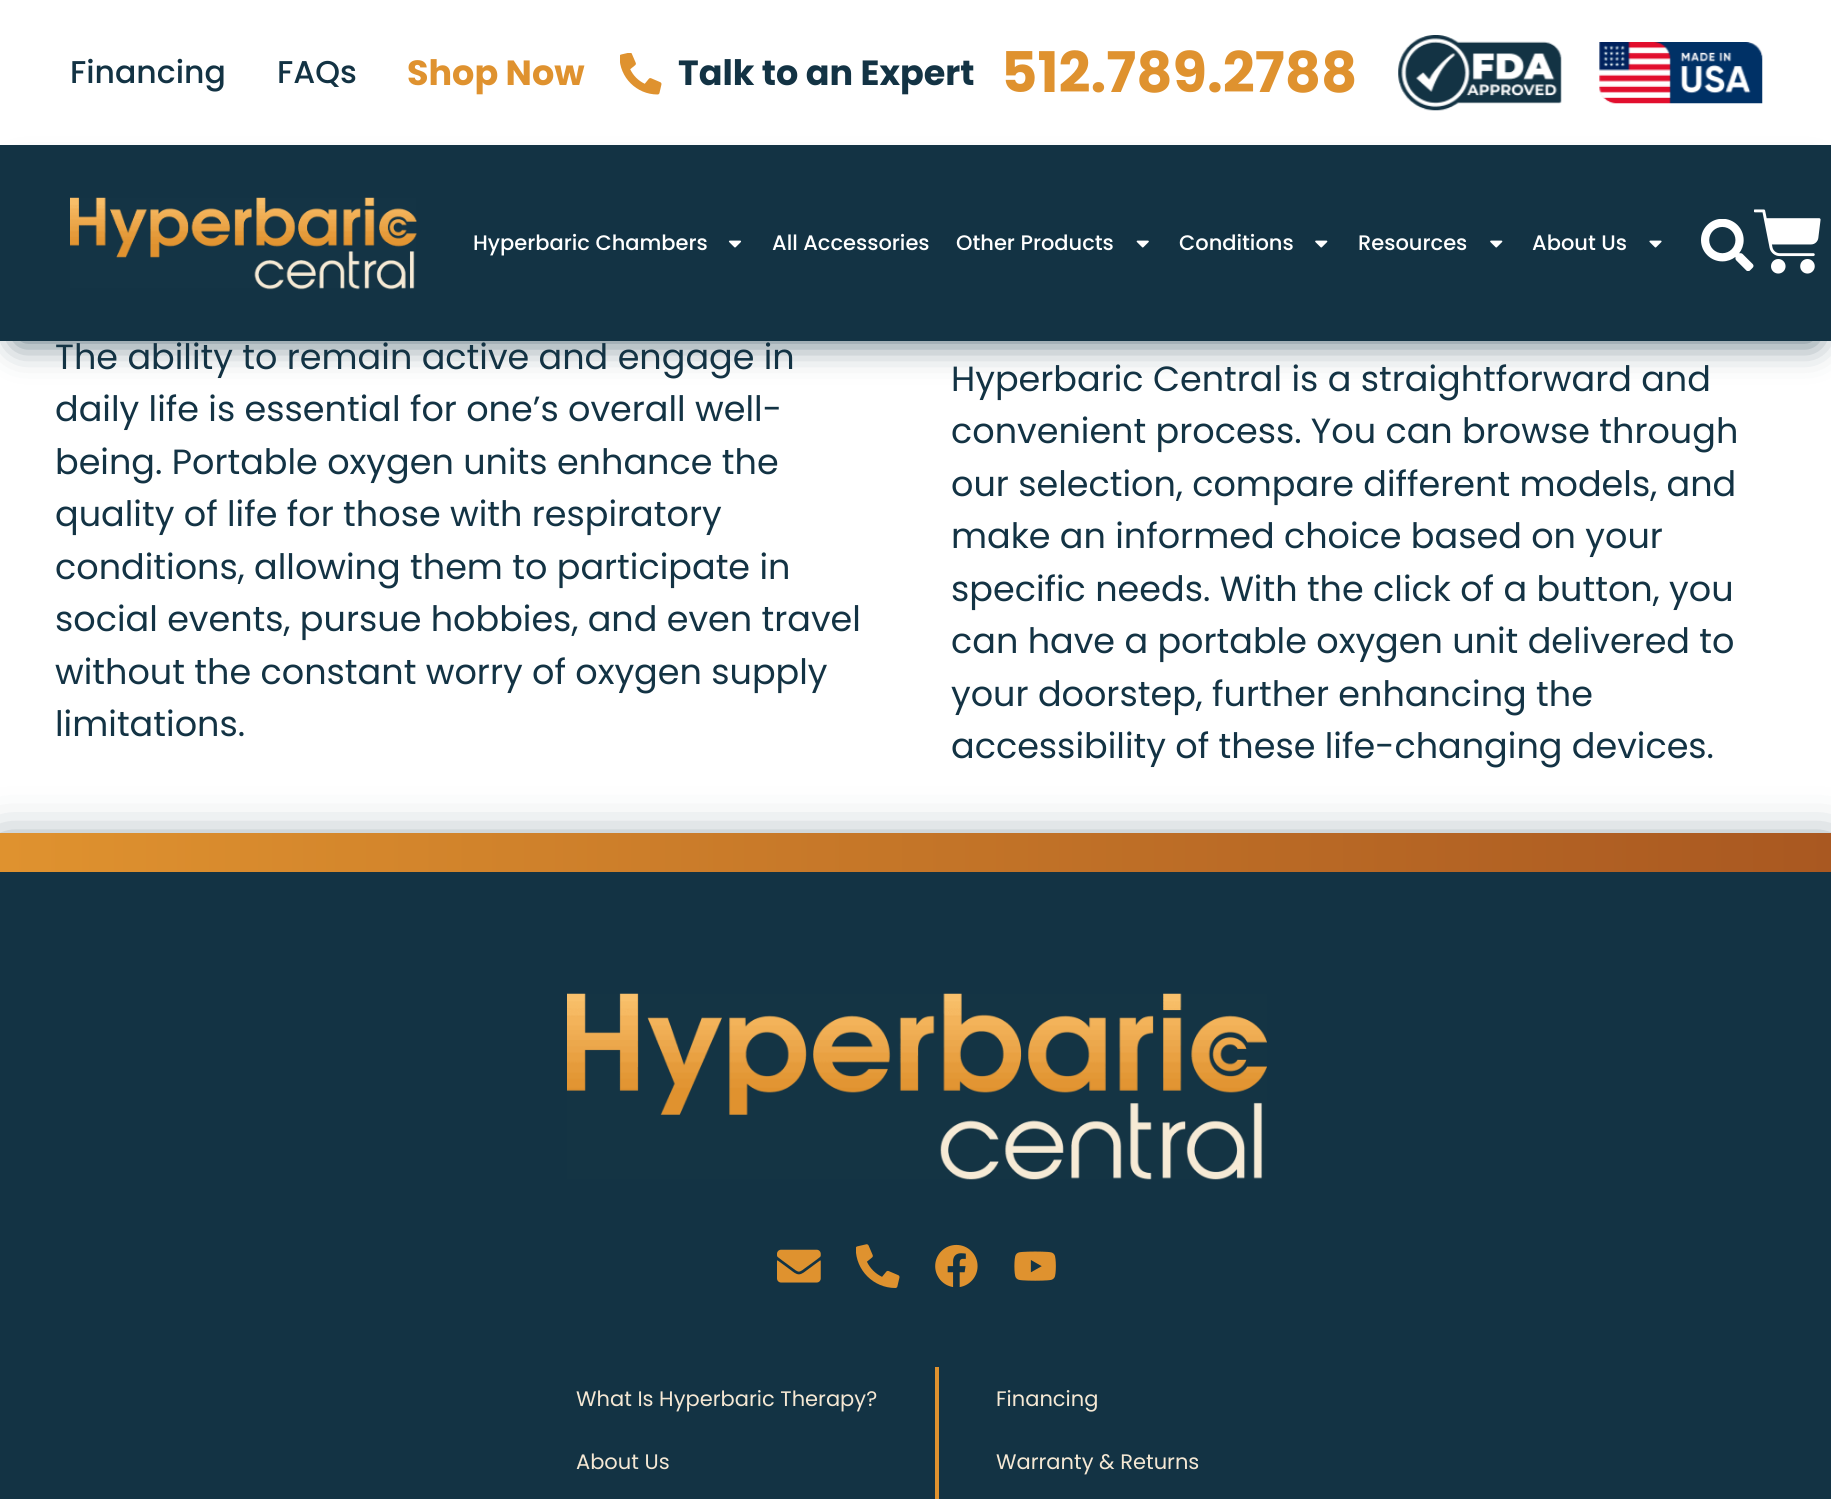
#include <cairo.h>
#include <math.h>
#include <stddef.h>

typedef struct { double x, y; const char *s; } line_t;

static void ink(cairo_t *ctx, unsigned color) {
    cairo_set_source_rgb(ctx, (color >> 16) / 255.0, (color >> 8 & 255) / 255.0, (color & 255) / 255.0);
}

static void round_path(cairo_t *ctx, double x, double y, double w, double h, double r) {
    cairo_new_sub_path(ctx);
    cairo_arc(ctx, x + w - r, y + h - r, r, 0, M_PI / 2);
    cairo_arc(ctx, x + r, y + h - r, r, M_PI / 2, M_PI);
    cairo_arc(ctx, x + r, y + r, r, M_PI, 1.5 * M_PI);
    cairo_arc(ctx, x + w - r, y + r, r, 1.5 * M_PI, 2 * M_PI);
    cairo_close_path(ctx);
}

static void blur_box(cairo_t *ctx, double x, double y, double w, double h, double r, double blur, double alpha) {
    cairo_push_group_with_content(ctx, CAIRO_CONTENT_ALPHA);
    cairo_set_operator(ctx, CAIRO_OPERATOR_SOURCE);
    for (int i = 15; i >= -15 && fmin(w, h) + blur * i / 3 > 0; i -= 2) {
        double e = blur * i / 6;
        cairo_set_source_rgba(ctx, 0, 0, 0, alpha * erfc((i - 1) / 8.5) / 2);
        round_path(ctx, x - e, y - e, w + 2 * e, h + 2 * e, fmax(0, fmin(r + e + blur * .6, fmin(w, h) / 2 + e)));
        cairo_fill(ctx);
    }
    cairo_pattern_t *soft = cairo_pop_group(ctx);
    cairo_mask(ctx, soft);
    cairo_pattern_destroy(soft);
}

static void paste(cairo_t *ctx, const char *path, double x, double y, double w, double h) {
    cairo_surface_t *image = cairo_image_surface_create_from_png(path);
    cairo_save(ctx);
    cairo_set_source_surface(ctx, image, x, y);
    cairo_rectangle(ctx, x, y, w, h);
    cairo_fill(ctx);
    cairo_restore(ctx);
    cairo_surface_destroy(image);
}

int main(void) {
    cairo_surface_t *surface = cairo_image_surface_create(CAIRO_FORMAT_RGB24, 1831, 1499);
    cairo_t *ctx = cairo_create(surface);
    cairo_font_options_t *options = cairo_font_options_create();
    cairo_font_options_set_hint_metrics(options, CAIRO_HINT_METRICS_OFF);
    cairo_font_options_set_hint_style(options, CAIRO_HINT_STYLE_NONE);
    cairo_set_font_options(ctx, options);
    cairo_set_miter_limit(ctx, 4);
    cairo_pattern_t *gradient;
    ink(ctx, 0xFFFFFF);
    cairo_paint(ctx);
    cairo_select_font_face(ctx, "Poppins Medium", CAIRO_FONT_SLANT_NORMAL, CAIRO_FONT_WEIGHT_NORMAL);
    cairo_set_font_size(ctx, 31.5);
    ink(ctx, 0x133344);
    cairo_move_to(ctx, 70, 83);
    cairo_show_text(ctx, "Financing");
    cairo_move_to(ctx, 277, 83);
    cairo_show_text(ctx, "FAQs");
    cairo_select_font_face(ctx, "Poppins", CAIRO_FONT_SLANT_NORMAL, CAIRO_FONT_WEIGHT_BOLD);
    cairo_set_font_size(ctx, 35);
    ink(ctx, 0xDF922F);
    cairo_move_to(ctx, 407, 85);
    cairo_show_text(ctx, "Shop Now");
    paste(ctx, "media/1.png", 620, 53, 42, 42);
    ink(ctx, 0x133344);
    cairo_move_to(ctx, 678, 85);
    cairo_show_text(ctx, "Talk to an Expert");
    cairo_set_font_size(ctx, 56);
    ink(ctx, 0xDF922F);
    cairo_move_to(ctx, 1001, 92);
    cairo_show_text(ctx, "512.789.2788");
    paste(ctx, "media/2.png", 1398, 35, 164, 76);
    paste(ctx, "media/3.png", 1599, 42, 164, 62);
    ink(ctx, 0x133344);
    blur_box(ctx, 18, 180, 1797, 161, 0, 17.5, 0.78);
    ink(ctx, 0x133344);
    cairo_rectangle(ctx, 0, 145, 1831, 196);
    cairo_fill(ctx);
    paste(ctx, "media/4.png", 70, 197, 347, 93);
    cairo_select_font_face(ctx, "Poppins Medium", CAIRO_FONT_SLANT_NORMAL, CAIRO_FONT_WEIGHT_NORMAL);
    cairo_set_font_size(ctx, 21);
    ink(ctx, 0xFFFFFF);
    cairo_move_to(ctx, 473, 250);
    cairo_show_text(ctx, "Hyperbaric Chambers");
    paste(ctx, "media/5.png", 728, 240, 14, 8);
    cairo_move_to(ctx, 772, 250);
    cairo_show_text(ctx, "All Accessories");
    cairo_move_to(ctx, 956, 250);
    cairo_show_text(ctx, "Other Products");
    paste(ctx, "media/6.png", 1136, 240, 13, 8);
    cairo_move_to(ctx, 1179, 250);
    cairo_show_text(ctx, "Conditions");
    paste(ctx, "media/7.png", 1315, 240, 13, 8);
    cairo_move_to(ctx, 1358, 250);
    cairo_show_text(ctx, "Resources");
    paste(ctx, "media/7.png", 1490, 240, 13, 8);
    cairo_move_to(ctx, 1532, 250);
    cairo_show_text(ctx, "About Us");
    paste(ctx, "media/8.png", 1649, 240, 13, 8);
    paste(ctx, "media/9.png", 1701, 219, 53, 52);
    paste(ctx, "media/10.png", 1754, 209, 67, 65);
    cairo_select_font_face(ctx, "Poppins", CAIRO_FONT_SLANT_NORMAL, CAIRO_FONT_WEIGHT_NORMAL);
    cairo_set_font_size(ctx, 35);
    ink(ctx, 0x133344);
    {
        static const line_t items[] = {
            {55, 369, "The ability to remain active and engage in"},
            {55, 421, "daily life is essential for one’s overall well-"},
            {55, 474, "being. Portable oxygen units enhance the"},
            {55, 526, "quality of life for those with respiratory"},
            {55, 579, "conditions, allowing them to participate in"},
            {55, 631, "social events, pursue hobbies, and even travel"},
            {55, 684, "without the constant worry of oxygen supply"},
            {55, 736, "limitations."},
            {951, 391, "Hyperbaric Central is a straightforward and"},
            {951, 443, "convenient process. You can browse through"},
            {951, 496, "our selection, compare different models, and"},
            {951, 548, "make an informed choice based on your"},
            {951, 601, "specific needs. With the click of a button, you"},
            {951, 653, "can have a portable oxygen unit delivered to"},
            {951, 706, "your doorstep, further enhancing the"},
            {951, 758, "accessibility of these life-changing devices."},
        };
        for (size_t i = 0; i < sizeof items / sizeof *items; i++) {
            cairo_move_to(ctx, items[i].x, items[i].y);
            cairo_show_text(ctx, items[i].s);
        }
    }
    ink(ctx, 0x133344);
    blur_box(ctx, 0, 851, 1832, 38, 0, 26, 0.78);
    gradient = cairo_pattern_create_linear(0, 852, 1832, 852);
    cairo_pattern_add_color_stop_rgba(gradient, 0, 0.875, 0.573, 0.184, 1);
    cairo_pattern_add_color_stop_rgba(gradient, 1, 0.663, 0.345, 0.129, 1);
    cairo_set_source(ctx, gradient);
    cairo_pattern_destroy(gradient);
    cairo_rectangle(ctx, 0, 833, 1831, 39);
    cairo_fill(ctx);
    ink(ctx, 0x133344);
    cairo_rectangle(ctx, 0, 872, 1831, 627);
    cairo_fill(ctx);
    paste(ctx, "media/11.png", 567, 993, 700, 187);
    paste(ctx, "media/12.png", 777, 1249, 44, 34);
    paste(ctx, "media/13.png", 856, 1244, 44, 44);
    paste(ctx, "media/14.png", 935, 1244, 43, 43);
    paste(ctx, "media/15.png", 1014, 1251, 42, 30);
    cairo_set_font_size(ctx, 21);
    ink(ctx, 0xF5E8D4);
    cairo_move_to(ctx, 576, 1406);
    cairo_show_text(ctx, "What Is Hyperbaric Therapy?");
    cairo_move_to(ctx, 576, 1469);
    cairo_show_text(ctx, "About Us");
    ink(ctx, 0xDF922F);
    cairo_rectangle(ctx, 935, 1367, 4, 132);
    cairo_fill(ctx);
    ink(ctx, 0xF5E8D4);
    cairo_move_to(ctx, 996, 1406);
    cairo_show_text(ctx, "Financing");
    cairo_move_to(ctx, 996, 1469);
    cairo_show_text(ctx, "Warranty & Returns");
    cairo_surface_write_to_png(surface, "image.png");
    cairo_font_options_destroy(options);
    cairo_destroy(ctx);
    cairo_surface_destroy(surface);
    return 0;
}
